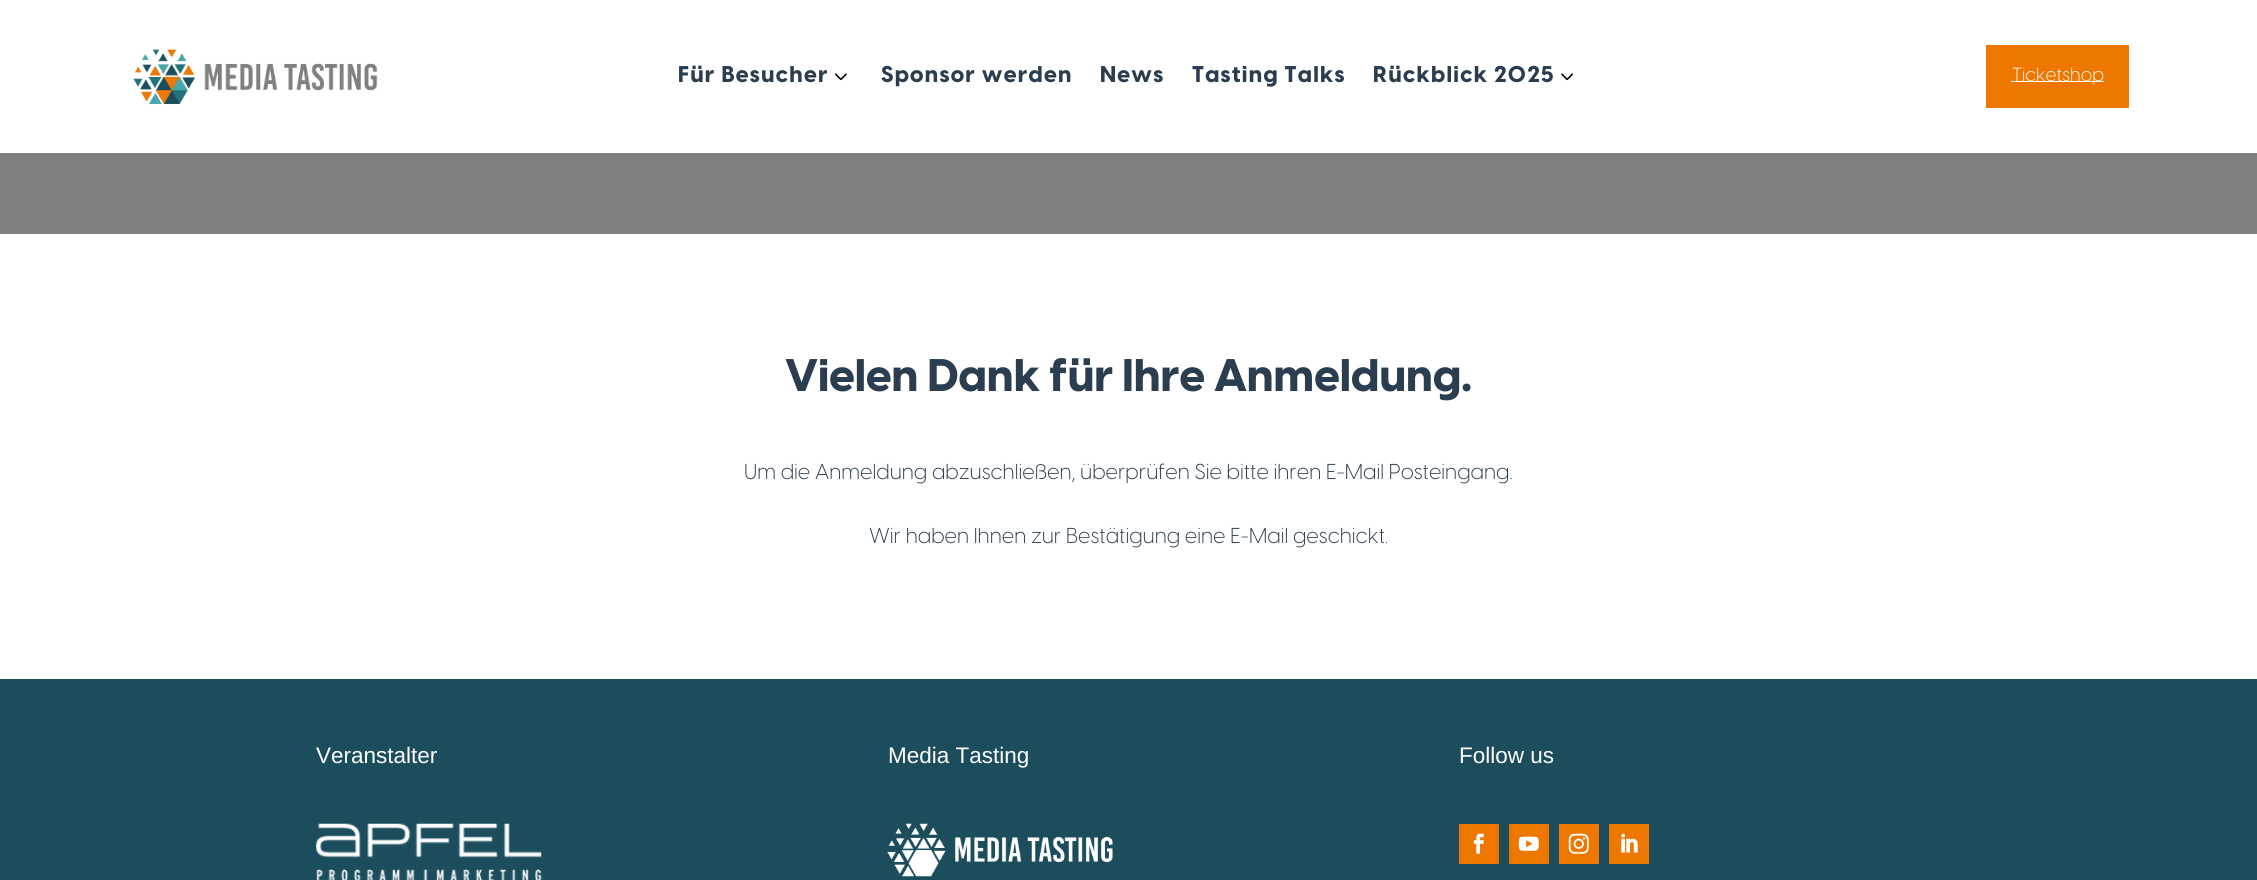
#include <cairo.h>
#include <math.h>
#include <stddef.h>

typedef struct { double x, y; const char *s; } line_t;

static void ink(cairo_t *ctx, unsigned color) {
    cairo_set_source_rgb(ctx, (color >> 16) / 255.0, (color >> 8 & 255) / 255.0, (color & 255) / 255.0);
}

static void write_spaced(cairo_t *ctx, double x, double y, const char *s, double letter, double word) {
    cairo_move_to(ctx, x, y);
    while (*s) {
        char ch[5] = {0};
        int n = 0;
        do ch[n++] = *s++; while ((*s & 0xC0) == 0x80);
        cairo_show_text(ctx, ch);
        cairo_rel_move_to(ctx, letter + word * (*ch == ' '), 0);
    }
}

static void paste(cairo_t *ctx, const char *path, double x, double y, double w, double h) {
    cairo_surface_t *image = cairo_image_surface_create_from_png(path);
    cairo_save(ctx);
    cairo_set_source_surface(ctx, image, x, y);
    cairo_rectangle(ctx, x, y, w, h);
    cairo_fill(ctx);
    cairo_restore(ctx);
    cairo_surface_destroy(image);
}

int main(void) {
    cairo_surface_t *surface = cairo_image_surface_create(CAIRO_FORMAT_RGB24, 2257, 880);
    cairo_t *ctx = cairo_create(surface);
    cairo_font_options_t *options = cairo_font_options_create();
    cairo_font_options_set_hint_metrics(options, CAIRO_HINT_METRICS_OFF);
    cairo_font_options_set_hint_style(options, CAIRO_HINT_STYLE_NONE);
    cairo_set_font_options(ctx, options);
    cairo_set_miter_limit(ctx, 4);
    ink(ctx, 0xFFFFFF);
    cairo_paint(ctx);
    paste(ctx, "media/1.png", 133, 49, 245, 56);
    cairo_select_font_face(ctx, "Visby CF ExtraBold", CAIRO_FONT_SLANT_NORMAL, CAIRO_FONT_WEIGHT_NORMAL);
    cairo_set_font_size(ctx, 22.5);
    ink(ctx, 0x2B3E50);
    write_spaced(ctx, 678, 82, "Für Besucher", 1.25, 0);
    paste(ctx, "media/2.png", 834, 73, 13, 8);
    {
        static const line_t items[] = {
            {881, 82, "Sponsor werden"},
            {1100, 82, "News"},
            {1192, 82, "Tasting Talks"},
            {1373, 82, "Rückblick 2025"},
        };
        for (size_t i = 0; i < sizeof items / sizeof *items; i++) {
            write_spaced(ctx, items[i].x, items[i].y, items[i].s, 1.25, 0);
        }
    }
    paste(ctx, "media/3.png", 1561, 73, 13, 8);
    ink(ctx, 0xEE7700);
    cairo_rectangle(ctx, 1986, 45, 143, 63);
    cairo_fill(ctx);
    ink(ctx, 0xFFFFFF);
    cairo_rectangle(ctx, 2011, 81, 93, 1);
    cairo_fill(ctx);
    cairo_select_font_face(ctx, "Visby CF Light", CAIRO_FONT_SLANT_NORMAL, CAIRO_FONT_WEIGHT_NORMAL);
    cairo_set_font_size(ctx, 18.75);
    cairo_move_to(ctx, 2012, 81);
    cairo_show_text(ctx, "Ticketshop");
    ink(ctx, 0x808080);
    cairo_rectangle(ctx, 0, 153, 2257, 81);
    cairo_fill(ctx);
    cairo_select_font_face(ctx, "Visby CF ExtraBold", CAIRO_FONT_SLANT_NORMAL, CAIRO_FONT_WEIGHT_NORMAL);
    cairo_set_font_size(ctx, 45);
    ink(ctx, 0x2B3E50);
    cairo_move_to(ctx, 785, 391);
    cairo_show_text(ctx, "Vielen Dank für Ihre Anmeldung.");
    cairo_select_font_face(ctx, "Visby CF Light", CAIRO_FONT_SLANT_NORMAL, CAIRO_FONT_WEIGHT_NORMAL);
    cairo_set_font_size(ctx, 21.25);
    cairo_move_to(ctx, 744, 479);
    cairo_show_text(ctx, "Um die Anmeldung abzuschließen, überprüfen Sie bitte ihren E-Mail Posteingang.");
    cairo_move_to(ctx, 869, 543);
    cairo_show_text(ctx, "Wir haben Ihnen zur Bestätigung eine E-Mail geschickt.");
    ink(ctx, 0x1B4D5C);
    cairo_rectangle(ctx, 0, 679, 2257, 201);
    cairo_fill(ctx);
    cairo_select_font_face(ctx, "Liberation Sans", CAIRO_FONT_SLANT_NORMAL, CAIRO_FONT_WEIGHT_NORMAL);
    cairo_set_font_size(ctx, 22.5);
    ink(ctx, 0xFFFFFF);
    cairo_move_to(ctx, 316, 763);
    cairo_show_text(ctx, "Veranstalter");
    paste(ctx, "media/4.png", 316, 823, 226, 57);
    cairo_move_to(ctx, 888, 763);
    cairo_show_text(ctx, "Media Tasting");
    paste(ctx, "media/5.png", 887, 823, 226, 54);
    cairo_move_to(ctx, 1459, 763);
    cairo_show_text(ctx, "Follow us");
    ink(ctx, 0xEE7700);
    cairo_rectangle(ctx, 1459, 824, 40, 40);
    cairo_fill(ctx);
    paste(ctx, "media/6.png", 1473, 833, 11, 21);
    cairo_rectangle(ctx, 1509, 824, 40, 40);
    cairo_fill(ctx);
    paste(ctx, "media/7.png", 1518, 836, 21, 15);
    cairo_rectangle(ctx, 1559, 824, 40, 40);
    cairo_fill(ctx);
    paste(ctx, "media/8.png", 1568, 833, 21, 21);
    cairo_rectangle(ctx, 1609, 824, 40, 40);
    cairo_fill(ctx);
    paste(ctx, "media/9.png", 1621, 833, 17, 20);
    cairo_surface_write_to_png(surface, "image.png");
    cairo_font_options_destroy(options);
    cairo_destroy(ctx);
    cairo_surface_destroy(surface);
    return 0;
}
